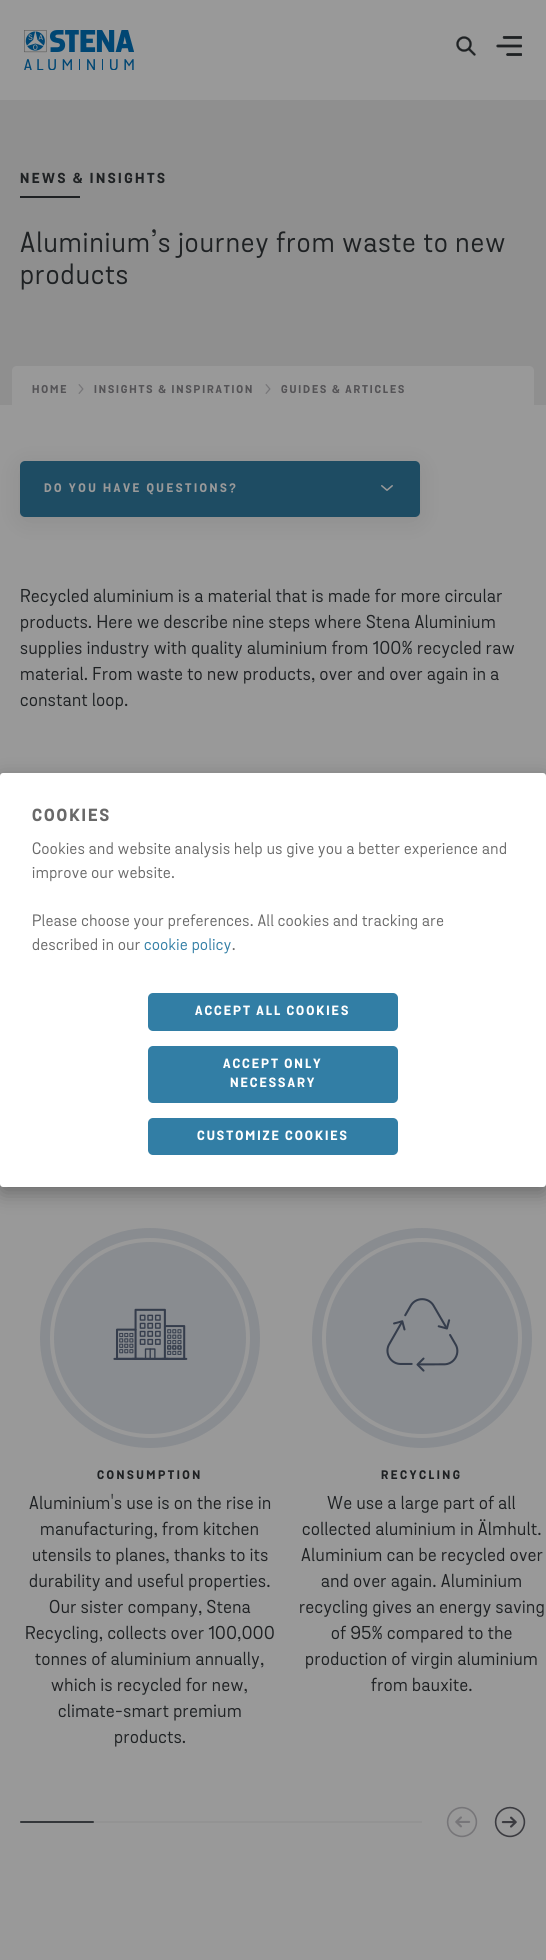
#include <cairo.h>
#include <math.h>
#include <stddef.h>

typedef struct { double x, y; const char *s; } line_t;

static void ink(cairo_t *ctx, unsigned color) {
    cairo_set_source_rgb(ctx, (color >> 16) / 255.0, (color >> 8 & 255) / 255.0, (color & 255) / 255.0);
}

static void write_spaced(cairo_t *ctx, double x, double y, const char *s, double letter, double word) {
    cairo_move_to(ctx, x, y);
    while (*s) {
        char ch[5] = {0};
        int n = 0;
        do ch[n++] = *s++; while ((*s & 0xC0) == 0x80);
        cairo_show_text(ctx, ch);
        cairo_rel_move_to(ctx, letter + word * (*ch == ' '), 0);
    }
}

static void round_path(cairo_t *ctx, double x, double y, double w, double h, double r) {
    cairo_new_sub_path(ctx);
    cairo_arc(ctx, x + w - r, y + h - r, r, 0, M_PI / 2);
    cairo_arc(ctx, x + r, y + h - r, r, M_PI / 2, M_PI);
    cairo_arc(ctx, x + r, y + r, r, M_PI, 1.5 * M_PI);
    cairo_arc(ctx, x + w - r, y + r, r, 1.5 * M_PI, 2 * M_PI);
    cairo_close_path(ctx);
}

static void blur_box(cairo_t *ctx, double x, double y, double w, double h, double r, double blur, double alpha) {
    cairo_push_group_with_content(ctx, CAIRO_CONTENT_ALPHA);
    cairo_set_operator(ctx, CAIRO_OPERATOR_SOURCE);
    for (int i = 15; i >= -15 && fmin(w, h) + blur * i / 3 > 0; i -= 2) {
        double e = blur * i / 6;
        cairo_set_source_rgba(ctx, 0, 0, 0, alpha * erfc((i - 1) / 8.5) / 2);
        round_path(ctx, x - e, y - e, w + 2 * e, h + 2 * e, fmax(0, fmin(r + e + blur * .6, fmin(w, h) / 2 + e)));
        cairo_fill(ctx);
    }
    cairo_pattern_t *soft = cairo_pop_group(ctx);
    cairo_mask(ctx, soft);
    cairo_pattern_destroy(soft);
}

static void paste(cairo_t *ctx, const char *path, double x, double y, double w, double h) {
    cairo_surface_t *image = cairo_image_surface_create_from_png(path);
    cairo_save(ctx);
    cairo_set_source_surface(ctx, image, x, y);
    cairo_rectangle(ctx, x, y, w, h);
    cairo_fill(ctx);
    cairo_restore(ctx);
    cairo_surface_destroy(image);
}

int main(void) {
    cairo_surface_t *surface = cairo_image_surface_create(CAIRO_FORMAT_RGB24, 546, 1960);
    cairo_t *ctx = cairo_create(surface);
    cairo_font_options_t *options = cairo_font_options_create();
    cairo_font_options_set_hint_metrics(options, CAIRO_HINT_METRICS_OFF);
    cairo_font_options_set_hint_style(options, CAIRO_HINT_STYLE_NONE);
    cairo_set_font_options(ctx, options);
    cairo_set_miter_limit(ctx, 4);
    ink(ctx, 0x999999);
    cairo_paint(ctx);
    paste(ctx, "media/1.png", 24, 30, 110, 40);
    paste(ctx, "media/2.png", 456, 36, 20, 20);
    paste(ctx, "media/3.png", 496, 36, 26, 20);
    ink(ctx, 0x8F8F8F);
    cairo_rectangle(ctx, 0, 100, 546, 305);
    cairo_fill(ctx);
    cairo_select_font_face(ctx, "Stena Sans", CAIRO_FONT_SLANT_NORMAL, CAIRO_FONT_WEIGHT_BOLD);
    cairo_set_font_size(ctx, 14);
    ink(ctx, 0x1E2123);
    write_spaced(ctx, 20, 183, "NEWS & INSIGHTS", 2.5, 0);
    cairo_rectangle(ctx, 20, 196, 60, 2);
    cairo_fill(ctx);
    cairo_select_font_face(ctx, "Stena Sans", CAIRO_FONT_SLANT_NORMAL, CAIRO_FONT_WEIGHT_NORMAL);
    cairo_set_font_size(ctx, 28);
    write_spaced(ctx, 20, 252, "Aluminium’s journey from waste to new", 1.2, 0);
    write_spaced(ctx, 20, 284, "products", 1.2, 0);
    ink(ctx, 0x999999);
    cairo_new_path(ctx);
    cairo_move_to(ctx, 17, 366);
    cairo_line_to(ctx, 529, 366);
    cairo_curve_to(ctx, 532, 366, 534, 368, 534, 371);
    cairo_line_to(ctx, 534, 406);
    cairo_line_to(ctx, 12, 406);
    cairo_line_to(ctx, 12, 371);
    cairo_curve_to(ctx, 12, 368, 14, 366, 17, 366);
    cairo_close_path(ctx);
    cairo_fill(ctx);
    cairo_select_font_face(ctx, "Stena Sans", CAIRO_FONT_SLANT_NORMAL, CAIRO_FONT_WEIGHT_BOLD);
    cairo_set_font_size(ctx, 11);
    ink(ctx, 0x545356);
    write_spaced(ctx, 32, 393, "HOME", 1.9, 0);
    paste(ctx, "media/4.png", 78, 384, 6, 10);
    write_spaced(ctx, 94, 393, "INSIGHTS & INSPIRATION", 1.9, 0);
    paste(ctx, "media/4.png", 265, 384, 6, 10);
    write_spaced(ctx, 281, 393, "GUIDES & ARTICLES", 1.9, 0);
    ink(ctx, 0x000000);
    blur_box(ctx, 20, 465, 400, 56, 5, 12.5, 0.08);
    ink(ctx, 0x1E4C63);
    round_path(ctx, 20, 461, 400, 56, 5);
    cairo_fill(ctx);
    cairo_set_font_size(ctx, 12);
    ink(ctx, 0x999999);
    write_spaced(ctx, 44, 492, "DO YOU HAVE QUESTIONS?", 2.5, 0);
    paste(ctx, "media/5.png", 381, 485, 12, 6);
    cairo_select_font_face(ctx, "Stena Sans", CAIRO_FONT_SLANT_NORMAL, CAIRO_FONT_WEIGHT_NORMAL);
    cairo_set_font_size(ctx, 18);
    ink(ctx, 0x1E2123);
    {
        static const line_t items[] = {
            {20, 602, "Recycled aluminium is a material that is made for more circular"},
            {20, 628, "products. Here we describe nine steps where Stena Aluminium"},
            {20, 654, "supplies industry with quality aluminium from 100% recycled raw"},
            {20, 680, "material. From waste to new products, over and over again in a"},
            {20, 706, "constant loop."},
        };
        for (size_t i = 0; i < sizeof items / sizeof *items; i++) {
            write_spaced(ctx, items[i].x, items[i].y, items[i].s, 0.5, 0);
        }
    }
    ink(ctx, 0x898C90);
    cairo_new_path(ctx);
    cairo_arc(ctx, 150, 1338, 110, 0, 2 * M_PI);
    cairo_fill(ctx);
    cairo_arc(ctx, 150, 1338, 98, 0, 2 * M_PI);
    ink(ctx, 0x999999);
    cairo_set_line_width(ctx, 4);
    cairo_stroke(ctx);
    paste(ctx, "media/6.png", 113, 1308, 75, 52);
    cairo_select_font_face(ctx, "Stena Sans", CAIRO_FONT_SLANT_NORMAL, CAIRO_FONT_WEIGHT_BOLD);
    cairo_set_font_size(ctx, 12);
    ink(ctx, 0x1E2123);
    write_spaced(ctx, 97, 1479, "CONSUMPTION", 2.5, 0);
    cairo_select_font_face(ctx, "Stena Sans", CAIRO_FONT_SLANT_NORMAL, CAIRO_FONT_WEIGHT_NORMAL);
    cairo_set_font_size(ctx, 18);
    {
        static const line_t items[] = {
            {29, 1509, "Aluminium's use is on the rise in"},
            {40, 1535, "manufacturing, from kitchen"},
            {32, 1561, "utensils to planes, thanks to its"},
            {29, 1587, "durability and useful properties."},
            {49, 1613, "Our sister company, Stena"},
            {25, 1639, "Recycling, collects over 100,000"},
            {35, 1665, "tonnes of aluminium annually,"},
            {51, 1691, "which is recycled for new,"},
            {58, 1717, "climate-smart premium"},
            {114, 1743, "products."},
        };
        for (size_t i = 0; i < sizeof items / sizeof *items; i++) {
            write_spaced(ctx, items[i].x, items[i].y, items[i].s, 0.5, 0);
        }
    }
    ink(ctx, 0x898C90);
    cairo_new_path(ctx);
    cairo_arc(ctx, 422, 1338, 110, 0, 2 * M_PI);
    cairo_fill(ctx);
    cairo_arc(ctx, 422, 1338, 98, 0, 2 * M_PI);
    ink(ctx, 0x999999);
    cairo_stroke(ctx);
    paste(ctx, "media/7.png", 386, 1298, 73, 74);
    cairo_select_font_face(ctx, "Stena Sans", CAIRO_FONT_SLANT_NORMAL, CAIRO_FONT_WEIGHT_BOLD);
    cairo_set_font_size(ctx, 12);
    ink(ctx, 0x1E2123);
    write_spaced(ctx, 381, 1479, "RECYCLING", 2.5, 0);
    cairo_select_font_face(ctx, "Stena Sans", CAIRO_FONT_SLANT_NORMAL, CAIRO_FONT_WEIGHT_NORMAL);
    cairo_set_font_size(ctx, 18);
    {
        static const line_t items[] = {
            {327, 1509, "We use a large part of all"},
            {302, 1535, "collected aluminium in Älmhult."},
            {301, 1561, "Aluminium can be recycled over"},
            {321, 1587, "and over again. Aluminium"},
            {299, 1613, "recycling gives an energy saving"},
            {331, 1639, "of 95% compared to the"},
            {305, 1665, "production of virgin aluminium"},
            {371, 1691, "from bauxite."},
        };
        for (size_t i = 0; i < sizeof items / sizeof *items; i++) {
            write_spaced(ctx, items[i].x, items[i].y, items[i].s, 0.5, 0);
        }
    }
    ink(ctx, 0x939393);
    cairo_rectangle(ctx, 20, 1821, 402, 2);
    cairo_fill(ctx);
    ink(ctx, 0x34373A);
    round_path(ctx, 20, 1821, 74, 2, 1);
    cairo_fill(ctx);
    paste(ctx, "media/8.png", 446, 1806, 32, 32);
    paste(ctx, "media/9.png", 494, 1806, 32, 32);
    ink(ctx, 0x000000);
    blur_box(ctx, 0, 779, 546, 414, 3, 10, 0.3);
    ink(ctx, 0xFFFFFF);
    round_path(ctx, 0, 773, 546, 414, 3);
    cairo_fill(ctx);
    cairo_select_font_face(ctx, "Stena Sans", CAIRO_FONT_SLANT_NORMAL, CAIRO_FONT_WEIGHT_BOLD);
    cairo_set_font_size(ctx, 17);
    ink(ctx, 0x696969);
    write_spaced(ctx, 32, 821, "COOKIES", 2, 0);
    cairo_select_font_face(ctx, "Stena Sans", CAIRO_FONT_SLANT_NORMAL, CAIRO_FONT_WEIGHT_NORMAL);
    cairo_set_font_size(ctx, 16);
    {
        static const line_t items[] = {
            {32, 854, "Cookies and website analysis help us give you a better experience and"},
            {32, 878, "improve our website."},
            {32, 926, "Please choose your preferences. All cookies and tracking are"},
            {32, 950, "described in our"},
        };
        for (size_t i = 0; i < sizeof items / sizeof *items; i++) {
            write_spaced(ctx, items[i].x, items[i].y, items[i].s, 0.5, 0);
        }
    }
    ink(ctx, 0x327EA5);
    write_spaced(ctx, 144, 950, "cookie policy", 0.5, 0);
    ink(ctx, 0x696969);
    write_spaced(ctx, 232, 950, ".", 0.5, 0);
    ink(ctx, 0x327EA5);
    round_path(ctx, 148, 993, 250, 38, 5);
    cairo_fill(ctx);
    cairo_select_font_face(ctx, "Stena Sans", CAIRO_FONT_SLANT_NORMAL, CAIRO_FONT_WEIGHT_BOLD);
    cairo_set_font_size(ctx, 13);
    ink(ctx, 0xFFFFFF);
    write_spaced(ctx, 195, 1015, "ACCEPT ALL COOKIES", 2, 0);
    ink(ctx, 0x327EA5);
    round_path(ctx, 148, 1046, 250, 57, 5);
    cairo_fill(ctx);
    ink(ctx, 0xFFFFFF);
    write_spaced(ctx, 223, 1068, "ACCEPT ONLY", 2, 0);
    write_spaced(ctx, 230, 1087, "NECESSARY", 2, 0);
    ink(ctx, 0x327EA5);
    round_path(ctx, 148, 1118, 250, 37, 5);
    cairo_fill(ctx);
    ink(ctx, 0xFFFFFF);
    write_spaced(ctx, 197, 1140, "CUSTOMIZE COOKIES", 2, 0);
    cairo_surface_write_to_png(surface, "image.png");
    cairo_font_options_destroy(options);
    cairo_destroy(ctx);
    cairo_surface_destroy(surface);
    return 0;
}
